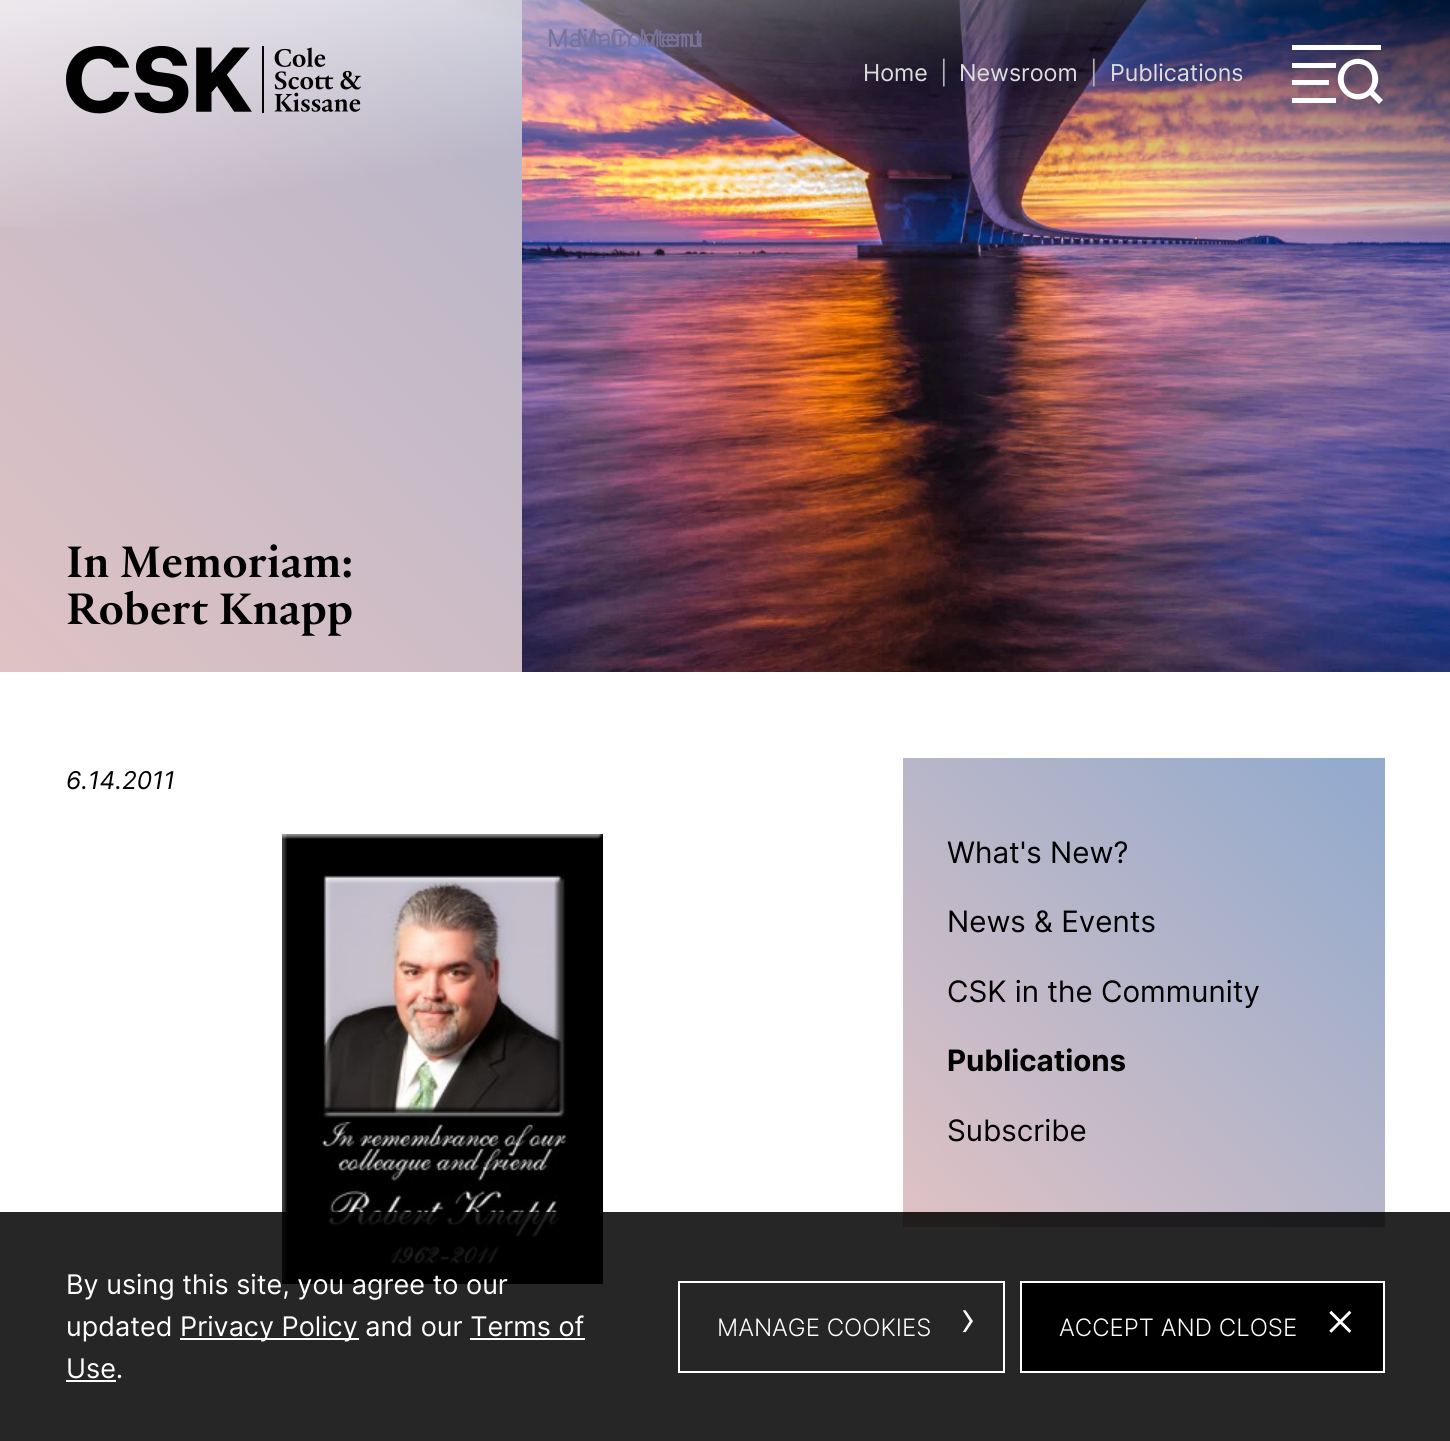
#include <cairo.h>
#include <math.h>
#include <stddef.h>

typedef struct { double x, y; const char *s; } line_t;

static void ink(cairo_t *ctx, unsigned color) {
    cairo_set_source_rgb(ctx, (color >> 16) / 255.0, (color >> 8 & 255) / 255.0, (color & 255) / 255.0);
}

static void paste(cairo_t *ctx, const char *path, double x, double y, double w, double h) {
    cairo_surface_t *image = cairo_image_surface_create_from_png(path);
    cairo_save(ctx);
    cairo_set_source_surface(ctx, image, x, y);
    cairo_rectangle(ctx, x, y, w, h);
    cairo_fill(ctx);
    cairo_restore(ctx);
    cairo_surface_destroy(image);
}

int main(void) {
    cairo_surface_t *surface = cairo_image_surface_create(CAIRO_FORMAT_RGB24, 1450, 1441);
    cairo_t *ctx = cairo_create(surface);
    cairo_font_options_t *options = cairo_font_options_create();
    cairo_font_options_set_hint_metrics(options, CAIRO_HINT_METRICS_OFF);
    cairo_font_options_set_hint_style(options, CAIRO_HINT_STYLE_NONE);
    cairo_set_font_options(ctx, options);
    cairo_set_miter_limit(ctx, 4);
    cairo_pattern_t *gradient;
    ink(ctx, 0xFFFFFF);
    cairo_paint(ctx);
    gradient = cairo_pattern_create_linear(1256, -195, 195, 867);
    cairo_pattern_add_color_stop_rgba(gradient, 0.02, 0.584, 0.671, 0.804, 1);
    cairo_pattern_add_color_stop_rgba(gradient, 1, 0.875, 0.761, 0.769, 1);
    cairo_set_source(ctx, gradient);
    cairo_pattern_destroy(gradient);
    cairo_rectangle(ctx, 0, 0, 522, 672);
    cairo_fill(ctx);
    paste(ctx, "media/2.png", 522, 0, 928, 672);
    gradient = cairo_pattern_create_linear(858, -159, 593, 831);
    cairo_pattern_add_color_stop_rgba(gradient, 0.01, 0, 0, 0, 0.66);
    cairo_pattern_add_color_stop_rgba(gradient, 0.26, 0, 0, 0, 0);
    cairo_pattern_add_color_stop_rgba(gradient, 1, 0, 0, 0, 0);
    cairo_set_source(ctx, gradient);
    cairo_pattern_destroy(gradient);
    cairo_rectangle(ctx, 456, 0, 994, 267);
    cairo_fill(ctx);
    gradient = cairo_pattern_create_linear(646, -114, 805, 786);
    cairo_pattern_add_color_stop_rgba(gradient, 0.01, 1, 1, 1, 0.66);
    cairo_pattern_add_color_stop_rgba(gradient, 0.26, 1, 1, 1, 0);
    cairo_pattern_add_color_stop_rgba(gradient, 0.51, 0, 0, 0, 0);
    cairo_pattern_add_color_stop_rgba(gradient, 1, 0, 0, 0, 0);
    cairo_set_source(ctx, gradient);
    cairo_pattern_destroy(gradient);
    cairo_rectangle(ctx, 0, 0, 1321, 227);
    cairo_fill(ctx);
    cairo_select_font_face(ctx, "Inter", CAIRO_FONT_SLANT_NORMAL, CAIRO_FONT_WEIGHT_NORMAL);
    cairo_set_font_size(ctx, 24.5);
    ink(ctx, 0x797299);
    cairo_move_to(ctx, 547, 47);
    cairo_show_text(ctx, "Main Content");
    cairo_move_to(ctx, 576, 47);
    cairo_show_text(ctx, "Main Menu");
    paste(ctx, "media/1.png", 66, 45, 296, 69);
    cairo_set_font_size(ctx, 23.25);
    ink(ctx, 0xDDDDDD);
    cairo_move_to(ctx, 863, 81);
    cairo_show_text(ctx, "Home");
    ink(ctx, 0xB4B4B4);
    cairo_move_to(ctx, 940, 81);
    cairo_show_text(ctx, "|");
    ink(ctx, 0xDDDDDD);
    cairo_move_to(ctx, 959, 81);
    cairo_show_text(ctx, "Newsroom");
    ink(ctx, 0xB4B4B4);
    cairo_move_to(ctx, 1090, 81);
    cairo_show_text(ctx, "|");
    ink(ctx, 0xDDDDDD);
    cairo_move_to(ctx, 1110, 81);
    cairo_show_text(ctx, "Publications");
    ink(ctx, 0xFFFFFF);
    cairo_rectangle(ctx, 1292, 45, 89, 5);
    cairo_fill(ctx);
    cairo_rectangle(ctx, 1292, 63, 44, 5);
    cairo_fill(ctx);
    cairo_new_path(ctx);
    cairo_move_to(ctx, 1374, 91);
    cairo_curve_to(ctx, 1381, 82, 1379, 70, 1370, 63);
    cairo_curve_to(ctx, 1361, 56, 1349, 58, 1342, 67);
    cairo_curve_to(ctx, 1335, 76, 1337, 88, 1346, 95);
    cairo_curve_to(ctx, 1353, 101, 1363, 101, 1370, 95);
    cairo_line_to(ctx, 1379, 104);
    cairo_line_to(ctx, 1383, 100);
    cairo_close_path(ctx);
    cairo_move_to(ctx, 1358, 94);
    cairo_curve_to(ctx, 1339, 94, 1339, 64, 1358, 64);
    cairo_curve_to(ctx, 1377, 64, 1377, 94, 1358, 94);
    cairo_close_path(ctx);
    cairo_fill(ctx);
    cairo_rectangle(ctx, 1292, 80, 37, 5);
    cairo_fill(ctx);
    cairo_rectangle(ctx, 1292, 98, 44, 5);
    cairo_fill(ctx);
    cairo_select_font_face(ctx, "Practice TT", CAIRO_FONT_SLANT_NORMAL, CAIRO_FONT_WEIGHT_BOLD);
    cairo_set_font_size(ctx, 47.5);
    ink(ctx, 0x000000);
    cairo_move_to(ctx, 66, 577);
    cairo_show_text(ctx, "In Memoriam:");
    cairo_move_to(ctx, 66, 624);
    cairo_show_text(ctx, "Robert Knapp");
    cairo_select_font_face(ctx, "Inter", CAIRO_FONT_SLANT_ITALIC, CAIRO_FONT_WEIGHT_NORMAL);
    cairo_set_font_size(ctx, 24.5);
    cairo_move_to(ctx, 66, 789);
    cairo_show_text(ctx, "6.14.2011");
    paste(ctx, "media/3.png", 282, 834, 321, 450);
    gradient = cairo_pattern_create_linear(1382, 755, 906, 1230);
    cairo_pattern_add_color_stop_rgba(gradient, 0.06, 0.584, 0.671, 0.804, 1);
    cairo_pattern_add_color_stop_rgba(gradient, 1, 0.875, 0.761, 0.769, 1);
    cairo_set_source(ctx, gradient);
    cairo_pattern_destroy(gradient);
    cairo_rectangle(ctx, 903, 758, 482, 469);
    cairo_fill(ctx);
    cairo_select_font_face(ctx, "Inter", CAIRO_FONT_SLANT_NORMAL, CAIRO_FONT_WEIGHT_NORMAL);
    cairo_set_font_size(ctx, 29.5);
    ink(ctx, 0x000000);
    {
        static const line_t items[] = {
            {947, 863, "What's New?"},
            {947, 932, "News & Events"},
            {947, 1002, "CSK in the Community"},
        };
        for (size_t i = 0; i < sizeof items / sizeof *items; i++) {
            cairo_move_to(ctx, items[i].x, items[i].y);
            cairo_show_text(ctx, items[i].s);
        }
    }
    cairo_select_font_face(ctx, "Inter", CAIRO_FONT_SLANT_NORMAL, CAIRO_FONT_WEIGHT_BOLD);
    cairo_move_to(ctx, 947, 1071);
    cairo_show_text(ctx, "Publications");
    cairo_select_font_face(ctx, "Inter", CAIRO_FONT_SLANT_NORMAL, CAIRO_FONT_WEIGHT_NORMAL);
    cairo_move_to(ctx, 947, 1141);
    cairo_show_text(ctx, "Subscribe");
    cairo_set_source_rgba(ctx, 0, 0, 0, 0.85);
    cairo_rectangle(ctx, 0, 1212, 1450, 229);
    cairo_fill(ctx);
    cairo_set_font_size(ctx, 27);
    ink(ctx, 0xFFFFFF);
    cairo_move_to(ctx, 66, 1294);
    cairo_show_text(ctx, "By using this site, you agree to our");
    cairo_move_to(ctx, 66, 1336);
    cairo_show_text(ctx, "updated");
    cairo_rectangle(ctx, 180, 1338, 179, 2);
    cairo_fill(ctx);
    cairo_move_to(ctx, 180, 1336);
    cairo_show_text(ctx, "Privacy Policy and our Terms of");
    cairo_move_to(ctx, 66, 1378);
    cairo_show_text(ctx, "Use.");
    cairo_rectangle(ctx, 470, 1338, 115, 2);
    cairo_fill(ctx);
    cairo_rectangle(ctx, 66, 1380, 50, 2);
    cairo_fill(ctx);
    cairo_rectangle(ctx, 679, 1282, 325, 90);
    cairo_stroke(ctx);
    cairo_select_font_face(ctx, "Inter Light", CAIRO_FONT_SLANT_NORMAL, CAIRO_FONT_WEIGHT_NORMAL);
    cairo_set_font_size(ctx, 24);
    cairo_move_to(ctx, 717, 1336);
    cairo_show_text(ctx, "MANAGE COOKIES");
    cairo_set_font_size(ctx, 50);
    cairo_move_to(ctx, 959, 1336);
    cairo_show_text(ctx, "›");
    ink(ctx, 0x000000);
    cairo_rectangle(ctx, 1021, 1282, 363, 90);
    cairo_fill_preserve(ctx);
    ink(ctx, 0xFFFFFF);
    cairo_stroke(ctx);
    cairo_set_font_size(ctx, 24);
    cairo_move_to(ctx, 1059, 1336);
    cairo_show_text(ctx, "ACCEPT AND CLOSE");
    cairo_set_font_size(ctx, 50);
    cairo_move_to(ctx, 1324, 1336);
    cairo_show_text(ctx, "×");
    cairo_surface_write_to_png(surface, "image.png");
    cairo_font_options_destroy(options);
    cairo_destroy(ctx);
    cairo_surface_destroy(surface);
    return 0;
}
